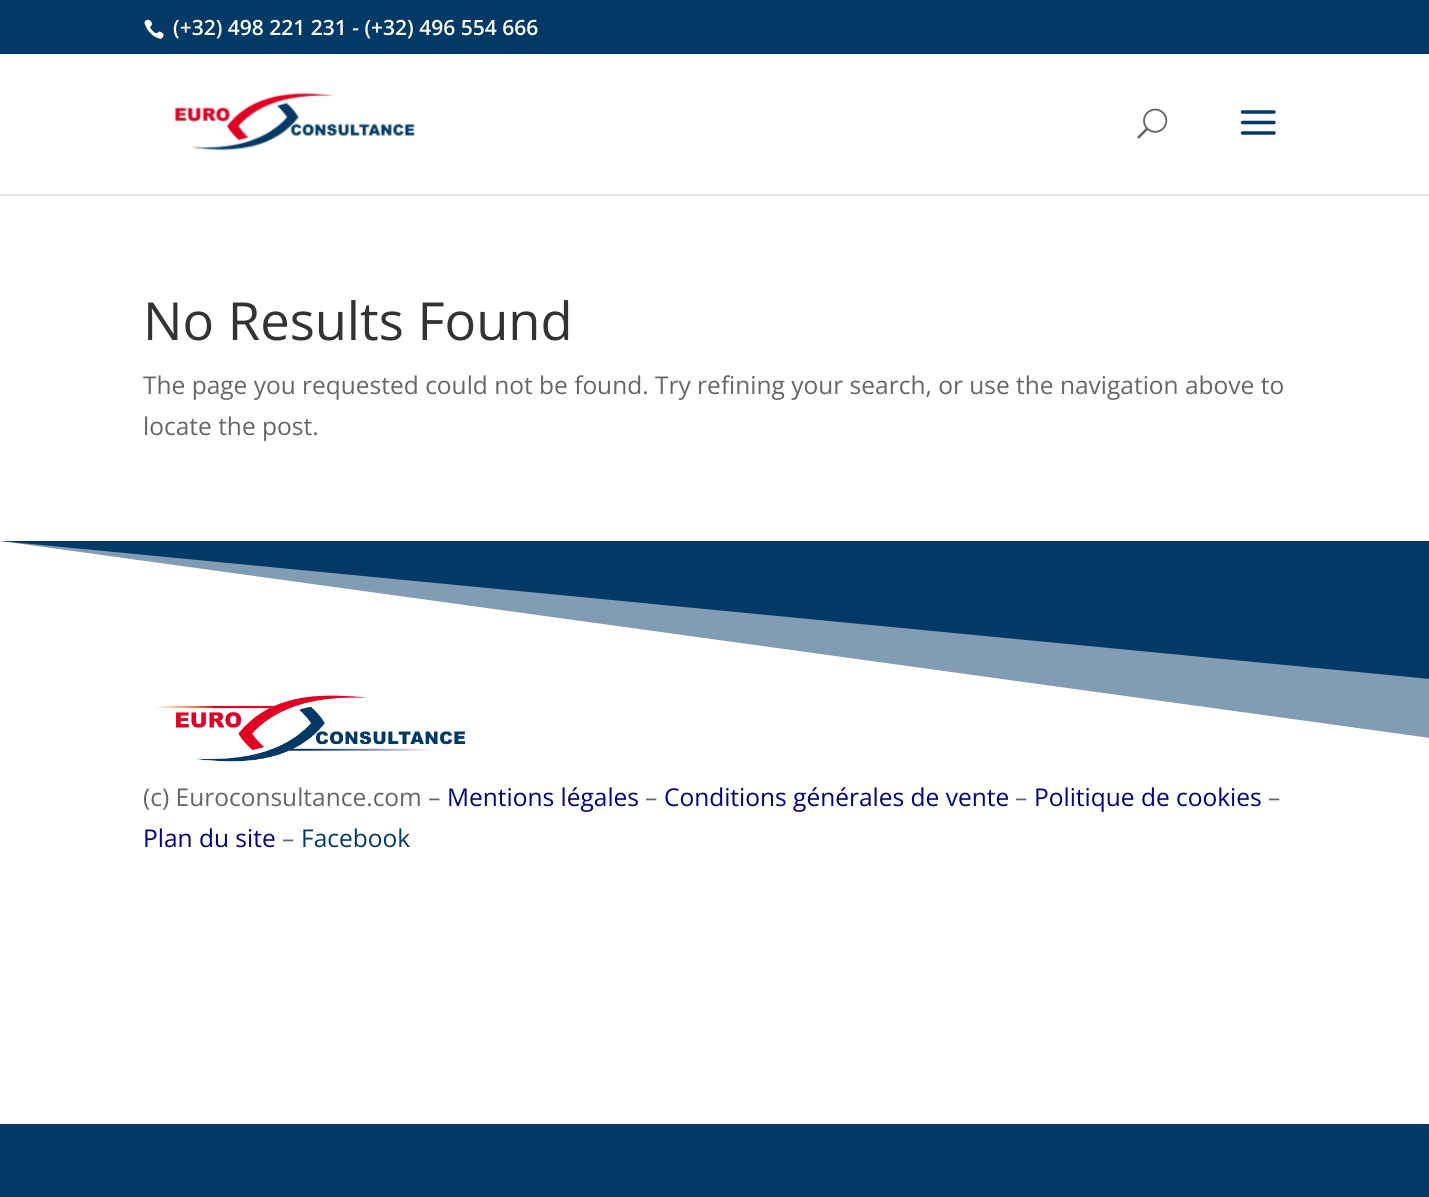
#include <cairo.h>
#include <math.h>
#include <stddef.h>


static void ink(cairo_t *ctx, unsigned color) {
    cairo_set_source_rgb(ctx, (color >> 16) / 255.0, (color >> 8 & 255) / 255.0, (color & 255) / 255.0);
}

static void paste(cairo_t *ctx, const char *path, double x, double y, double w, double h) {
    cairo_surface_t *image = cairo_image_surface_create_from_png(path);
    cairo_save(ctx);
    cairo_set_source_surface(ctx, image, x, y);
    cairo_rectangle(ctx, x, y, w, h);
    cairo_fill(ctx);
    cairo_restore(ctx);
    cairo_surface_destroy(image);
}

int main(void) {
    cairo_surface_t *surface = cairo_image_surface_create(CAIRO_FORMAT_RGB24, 1429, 1197);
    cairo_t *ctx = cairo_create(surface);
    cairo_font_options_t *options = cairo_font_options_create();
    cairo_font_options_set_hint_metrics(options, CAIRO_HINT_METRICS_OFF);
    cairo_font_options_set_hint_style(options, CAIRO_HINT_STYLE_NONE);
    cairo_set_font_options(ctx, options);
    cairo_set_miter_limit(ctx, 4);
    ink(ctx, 0x033966);
    cairo_paint(ctx);
    paste(ctx, "media/1.png", 144, 19, 20, 20);
    cairo_select_font_face(ctx, "Open Sans SemiBold", CAIRO_FONT_SLANT_NORMAL, CAIRO_FONT_WEIGHT_NORMAL);
    cairo_set_font_size(ctx, 21);
    ink(ctx, 0xFFFFFF);
    cairo_move_to(ctx, 173, 35);
    cairo_show_text(ctx, "(+32) 498 221 231 - (+32) 496 554 666");
    ink(ctx, 0xE6E6E6);
    cairo_new_path(ctx);
    cairo_move_to(ctx, 0, 194);
    cairo_line_to(ctx, 0, 196);
    cairo_line_to(ctx, 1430, 196);
    cairo_line_to(ctx, 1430, 56);
    cairo_line_to(ctx, 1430, 194);
    cairo_close_path(ctx);
    cairo_fill(ctx);
    ink(ctx, 0xFFFFFF);
    cairo_rectangle(ctx, 0, 54, 1429, 140);
    cairo_fill(ctx);
    paste(ctx, "media/2.png", 174, 92, 241, 59);
    paste(ctx, "media/3.png", 1137, 108, 31, 31);
    paste(ctx, "media/4.png", 1240, 110, 36, 25);
    cairo_rectangle(ctx, 0, 196, 1429, 928);
    cairo_fill(ctx);
    cairo_select_font_face(ctx, "Open Sans", CAIRO_FONT_SLANT_NORMAL, CAIRO_FONT_WEIGHT_NORMAL);
    cairo_set_font_size(ctx, 52.5);
    ink(ctx, 0x333333);
    cairo_move_to(ctx, 143, 340);
    cairo_show_text(ctx, "No Results Found");
    cairo_set_font_size(ctx, 24.5);
    ink(ctx, 0x666666);
    cairo_move_to(ctx, 143, 394);
    cairo_show_text(ctx, "The page you requested could not be found. Try refining your search, or use the navigation above to");
    cairo_move_to(ctx, 143, 435);
    cairo_show_text(ctx, "locate the post.");
    ink(ctx, 0x819CB3);
    cairo_new_path(ctx);
    cairo_move_to(ctx, 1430, 738);
    cairo_line_to(ctx, 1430, 541);
    cairo_line_to(ctx, 0, 541);
    cairo_close_path(ctx);
    cairo_fill(ctx);
    ink(ctx, 0x033966);
    cairo_new_path(ctx);
    cairo_move_to(ctx, 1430, 679);
    cairo_line_to(ctx, 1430, 541);
    cairo_line_to(ctx, 0, 541);
    cairo_close_path(ctx);
    cairo_fill(ctx);
    paste(ctx, "media/5.png", 156, 695, 310, 67);
    ink(ctx, 0x666666);
    cairo_move_to(ctx, 143, 806);
    cairo_show_text(ctx, "(c) Euroconsultance.com –");
    ink(ctx, 0x000080);
    cairo_move_to(ctx, 447, 806);
    cairo_show_text(ctx, "Mentions légales");
    ink(ctx, 0x666666);
    cairo_move_to(ctx, 645, 806);
    cairo_show_text(ctx, "–");
    ink(ctx, 0x000080);
    cairo_move_to(ctx, 664, 806);
    cairo_show_text(ctx, "Conditions générales de vente");
    ink(ctx, 0x666666);
    cairo_move_to(ctx, 1015, 806);
    cairo_show_text(ctx, "–");
    ink(ctx, 0x000080);
    cairo_move_to(ctx, 1034, 806);
    cairo_show_text(ctx, "Politique de cookies");
    ink(ctx, 0x666666);
    cairo_move_to(ctx, 1268, 806);
    cairo_show_text(ctx, "–");
    ink(ctx, 0x000080);
    cairo_move_to(ctx, 143, 847);
    cairo_show_text(ctx, "Plan du site");
    ink(ctx, 0x666666);
    cairo_move_to(ctx, 282, 847);
    cairo_show_text(ctx, "–");
    ink(ctx, 0x033966);
    cairo_move_to(ctx, 301, 847);
    cairo_show_text(ctx, "Facebook");
    cairo_surface_write_to_png(surface, "image.png");
    cairo_font_options_destroy(options);
    cairo_destroy(ctx);
    cairo_surface_destroy(surface);
    return 0;
}
